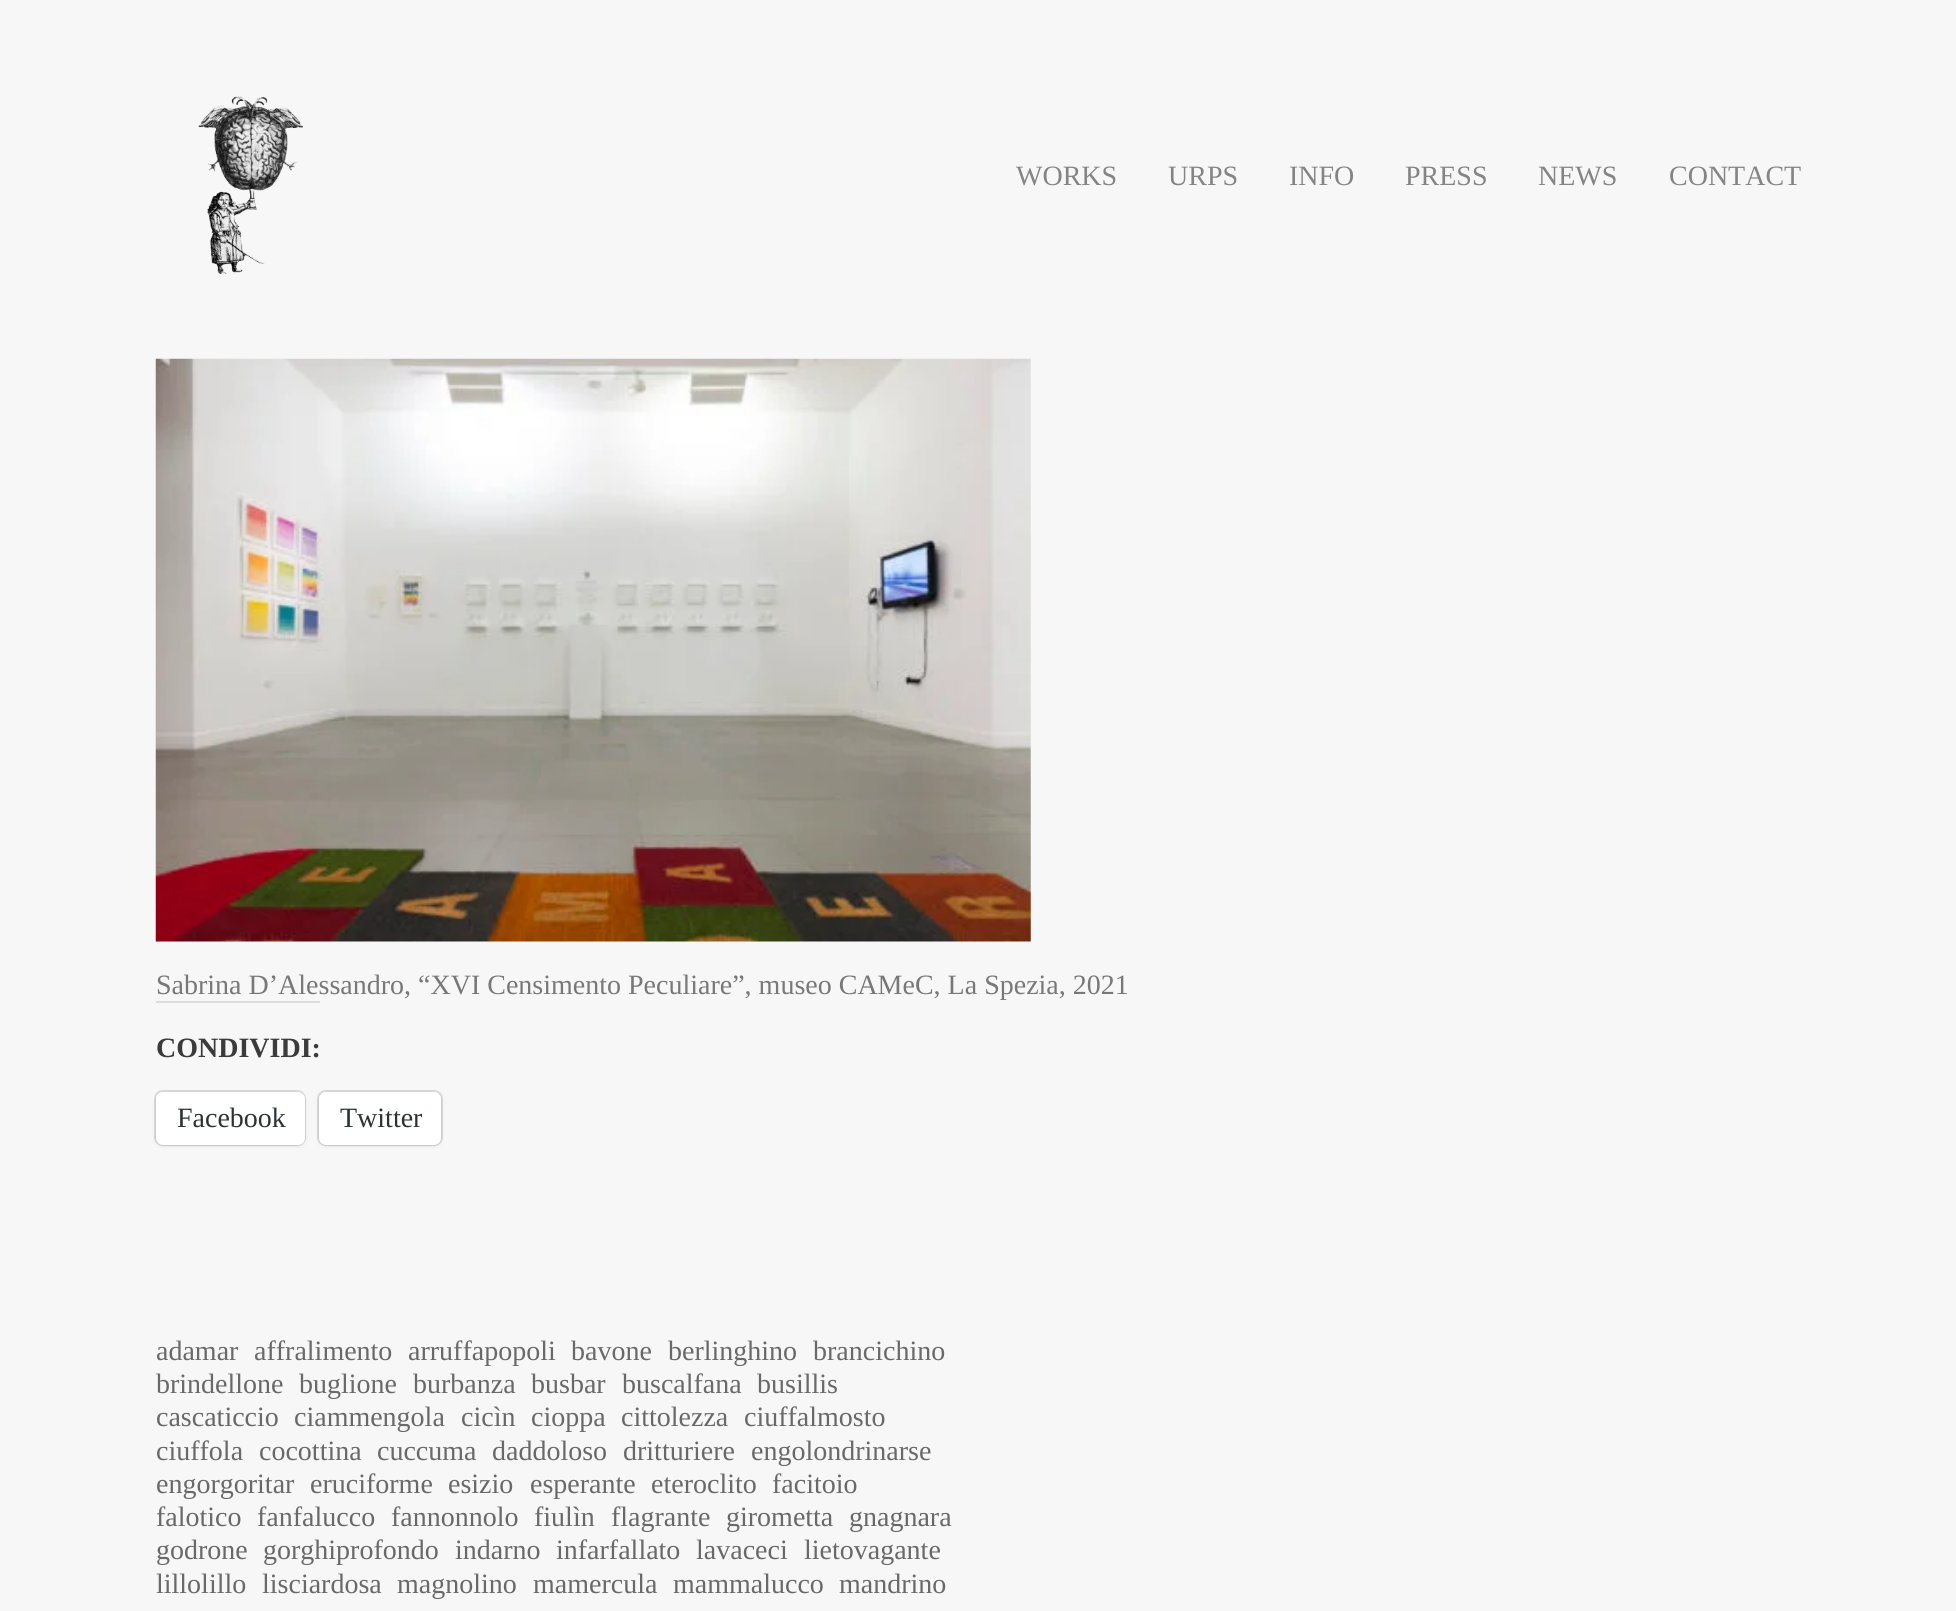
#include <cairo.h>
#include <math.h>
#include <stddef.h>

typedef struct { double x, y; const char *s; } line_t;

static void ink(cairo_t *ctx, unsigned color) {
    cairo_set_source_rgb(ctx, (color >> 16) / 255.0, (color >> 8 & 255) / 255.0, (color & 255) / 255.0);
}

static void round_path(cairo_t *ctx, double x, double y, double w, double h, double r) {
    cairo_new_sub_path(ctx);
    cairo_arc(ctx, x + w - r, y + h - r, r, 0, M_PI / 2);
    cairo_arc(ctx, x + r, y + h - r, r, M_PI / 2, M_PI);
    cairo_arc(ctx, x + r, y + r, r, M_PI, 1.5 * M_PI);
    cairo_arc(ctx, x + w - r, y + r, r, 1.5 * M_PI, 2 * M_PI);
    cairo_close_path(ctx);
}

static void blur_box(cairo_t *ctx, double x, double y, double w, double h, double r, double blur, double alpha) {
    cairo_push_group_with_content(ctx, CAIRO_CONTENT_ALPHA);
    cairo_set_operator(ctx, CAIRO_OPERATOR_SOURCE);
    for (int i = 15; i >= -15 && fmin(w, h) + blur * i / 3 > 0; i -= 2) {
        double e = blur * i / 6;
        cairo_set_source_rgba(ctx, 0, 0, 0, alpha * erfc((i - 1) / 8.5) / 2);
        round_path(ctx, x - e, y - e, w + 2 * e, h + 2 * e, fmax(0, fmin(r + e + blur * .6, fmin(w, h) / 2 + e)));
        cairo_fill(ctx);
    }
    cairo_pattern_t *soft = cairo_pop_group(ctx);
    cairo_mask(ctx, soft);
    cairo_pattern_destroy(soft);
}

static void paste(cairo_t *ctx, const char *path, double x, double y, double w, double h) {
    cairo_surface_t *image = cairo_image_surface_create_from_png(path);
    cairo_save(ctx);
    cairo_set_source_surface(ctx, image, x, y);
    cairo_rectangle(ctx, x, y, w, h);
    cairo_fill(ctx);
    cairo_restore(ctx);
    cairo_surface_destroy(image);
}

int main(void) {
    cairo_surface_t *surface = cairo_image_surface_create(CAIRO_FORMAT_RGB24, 1956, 1611);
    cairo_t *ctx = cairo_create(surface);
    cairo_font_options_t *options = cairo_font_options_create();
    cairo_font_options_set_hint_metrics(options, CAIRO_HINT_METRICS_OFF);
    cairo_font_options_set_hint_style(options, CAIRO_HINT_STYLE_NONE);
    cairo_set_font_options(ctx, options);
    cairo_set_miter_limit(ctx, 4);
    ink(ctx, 0xF7F7F7);
    cairo_paint(ctx);
    paste(ctx, "media/1.png", 198, 96, 106, 178);
    cairo_select_font_face(ctx, "Liberation Serif", CAIRO_FONT_SLANT_NORMAL, CAIRO_FONT_WEIGHT_NORMAL);
    cairo_set_font_size(ctx, 28);
    ink(ctx, 0x848484);
    {
        static const line_t items[] = {
            {1016, 185, "WORKS"},
            {1168, 185, "URPS"},
            {1289, 185, "INFO"},
            {1405, 185, "PRESS"},
            {1538, 185, "NEWS"},
            {1669, 185, "CONTACT"},
        };
        for (size_t i = 0; i < sizeof items / sizeof *items; i++) {
            cairo_move_to(ctx, items[i].x, items[i].y);
            cairo_show_text(ctx, items[i].s);
        }
    }
    paste(ctx, "media/2.png", 155, 358, 876, 584);
    ink(ctx, 0x787878);
    cairo_move_to(ctx, 156, 994);
    cairo_show_text(ctx, "Sabrina D’Alessandro, “XVI Censimento Peculiare”, museo CAMeC, La Spezia, 2021");
    ink(ctx, 0xDCDCDE);
    cairo_rectangle(ctx, 156, 1001, 164, 2);
    cairo_fill(ctx);
    cairo_select_font_face(ctx, "Liberation Serif", CAIRO_FONT_SLANT_NORMAL, CAIRO_FONT_WEIGHT_BOLD);
    ink(ctx, 0x3B3B3B);
    cairo_move_to(ctx, 156, 1057);
    cairo_show_text(ctx, "CONDIVIDI:");
    round_path(ctx, 155, 1091, 150, 54, 8);
    ink(ctx, 0xD9D9D9);
    cairo_stroke(ctx);
    ink(ctx, 0x000000);
    blur_box(ctx, 156, 1094, 149, 52, 7, 2, 0.12);
    ink(ctx, 0xFFFFFF);
    round_path(ctx, 156, 1092, 149, 53, 7);
    cairo_fill(ctx);
    cairo_select_font_face(ctx, "Liberation Serif", CAIRO_FONT_SLANT_NORMAL, CAIRO_FONT_WEIGHT_NORMAL);
    ink(ctx, 0x2C3338);
    cairo_move_to(ctx, 177, 1127);
    cairo_show_text(ctx, "Facebook");
    round_path(ctx, 318, 1091, 124, 54, 8);
    ink(ctx, 0xD9D9D9);
    cairo_stroke(ctx);
    ink(ctx, 0x000000);
    blur_box(ctx, 319, 1094, 122, 52, 7, 2, 0.12);
    ink(ctx, 0xFFFFFF);
    round_path(ctx, 319, 1092, 122, 53, 7);
    cairo_fill(ctx);
    ink(ctx, 0x2C3338);
    cairo_move_to(ctx, 340, 1127);
    cairo_show_text(ctx, "Twitter");
    ink(ctx, 0x696969);
    {
        static const line_t items[] = {
            {156, 1360, "adamar"},
            {254, 1360, "affralimento"},
            {408, 1360, "arruffapopoli"},
            {571, 1360, "bavone"},
            {668, 1360, "berlinghino"},
            {813, 1360, "brancichino"},
            {156, 1393, "brindellone"},
            {299, 1393, "buglione"},
            {413, 1393, "burbanza"},
            {531, 1393, "busbar"},
            {622, 1393, "buscalfana"},
            {757, 1393, "busillis"},
            {156, 1426, "cascaticcio"},
            {294, 1426, "ciammengola"},
            {461, 1426, "cicìn"},
            {531, 1426, "cioppa"},
            {621, 1426, "cittolezza"},
            {744, 1426, "ciuffalmosto"},
            {156, 1460, "ciuffola"},
            {259, 1460, "cocottina"},
            {377, 1460, "cuccuma"},
            {492, 1460, "daddoloso"},
            {623, 1460, "dritturiere"},
            {751, 1460, "engolondrinarse"},
            {156, 1493, "engorgoritar"},
            {310, 1493, "eruciforme"},
            {448, 1493, "esizio"},
            {530, 1493, "esperante"},
            {651, 1493, "eteroclito"},
            {772, 1493, "facitoio"},
            {156, 1526, "falotico"},
            {257, 1526, "fanfalucco"},
            {391, 1526, "fannonnolo"},
            {534, 1526, "fiulìn"},
            {611, 1526, "flagrante"},
            {726, 1526, "girometta"},
            {849, 1526, "gnagnara"},
            {156, 1559, "godrone"},
            {263, 1559, "gorghiprofondo"},
            {455, 1559, "indarno"},
            {556, 1559, "infarfallato"},
            {696, 1559, "lavaceci"},
            {804, 1559, "lietovagante"},
            {156, 1593, "lillolillo"},
            {262, 1593, "lisciardosa"},
            {397, 1593, "magnolino"},
            {533, 1593, "mamercula"},
            {673, 1593, "mammalucco"},
            {839, 1593, "mandrino"},
        };
        for (size_t i = 0; i < sizeof items / sizeof *items; i++) {
            cairo_move_to(ctx, items[i].x, items[i].y);
            cairo_show_text(ctx, items[i].s);
        }
    }
    cairo_surface_write_to_png(surface, "image.png");
    cairo_font_options_destroy(options);
    cairo_destroy(ctx);
    cairo_surface_destroy(surface);
    return 0;
}
